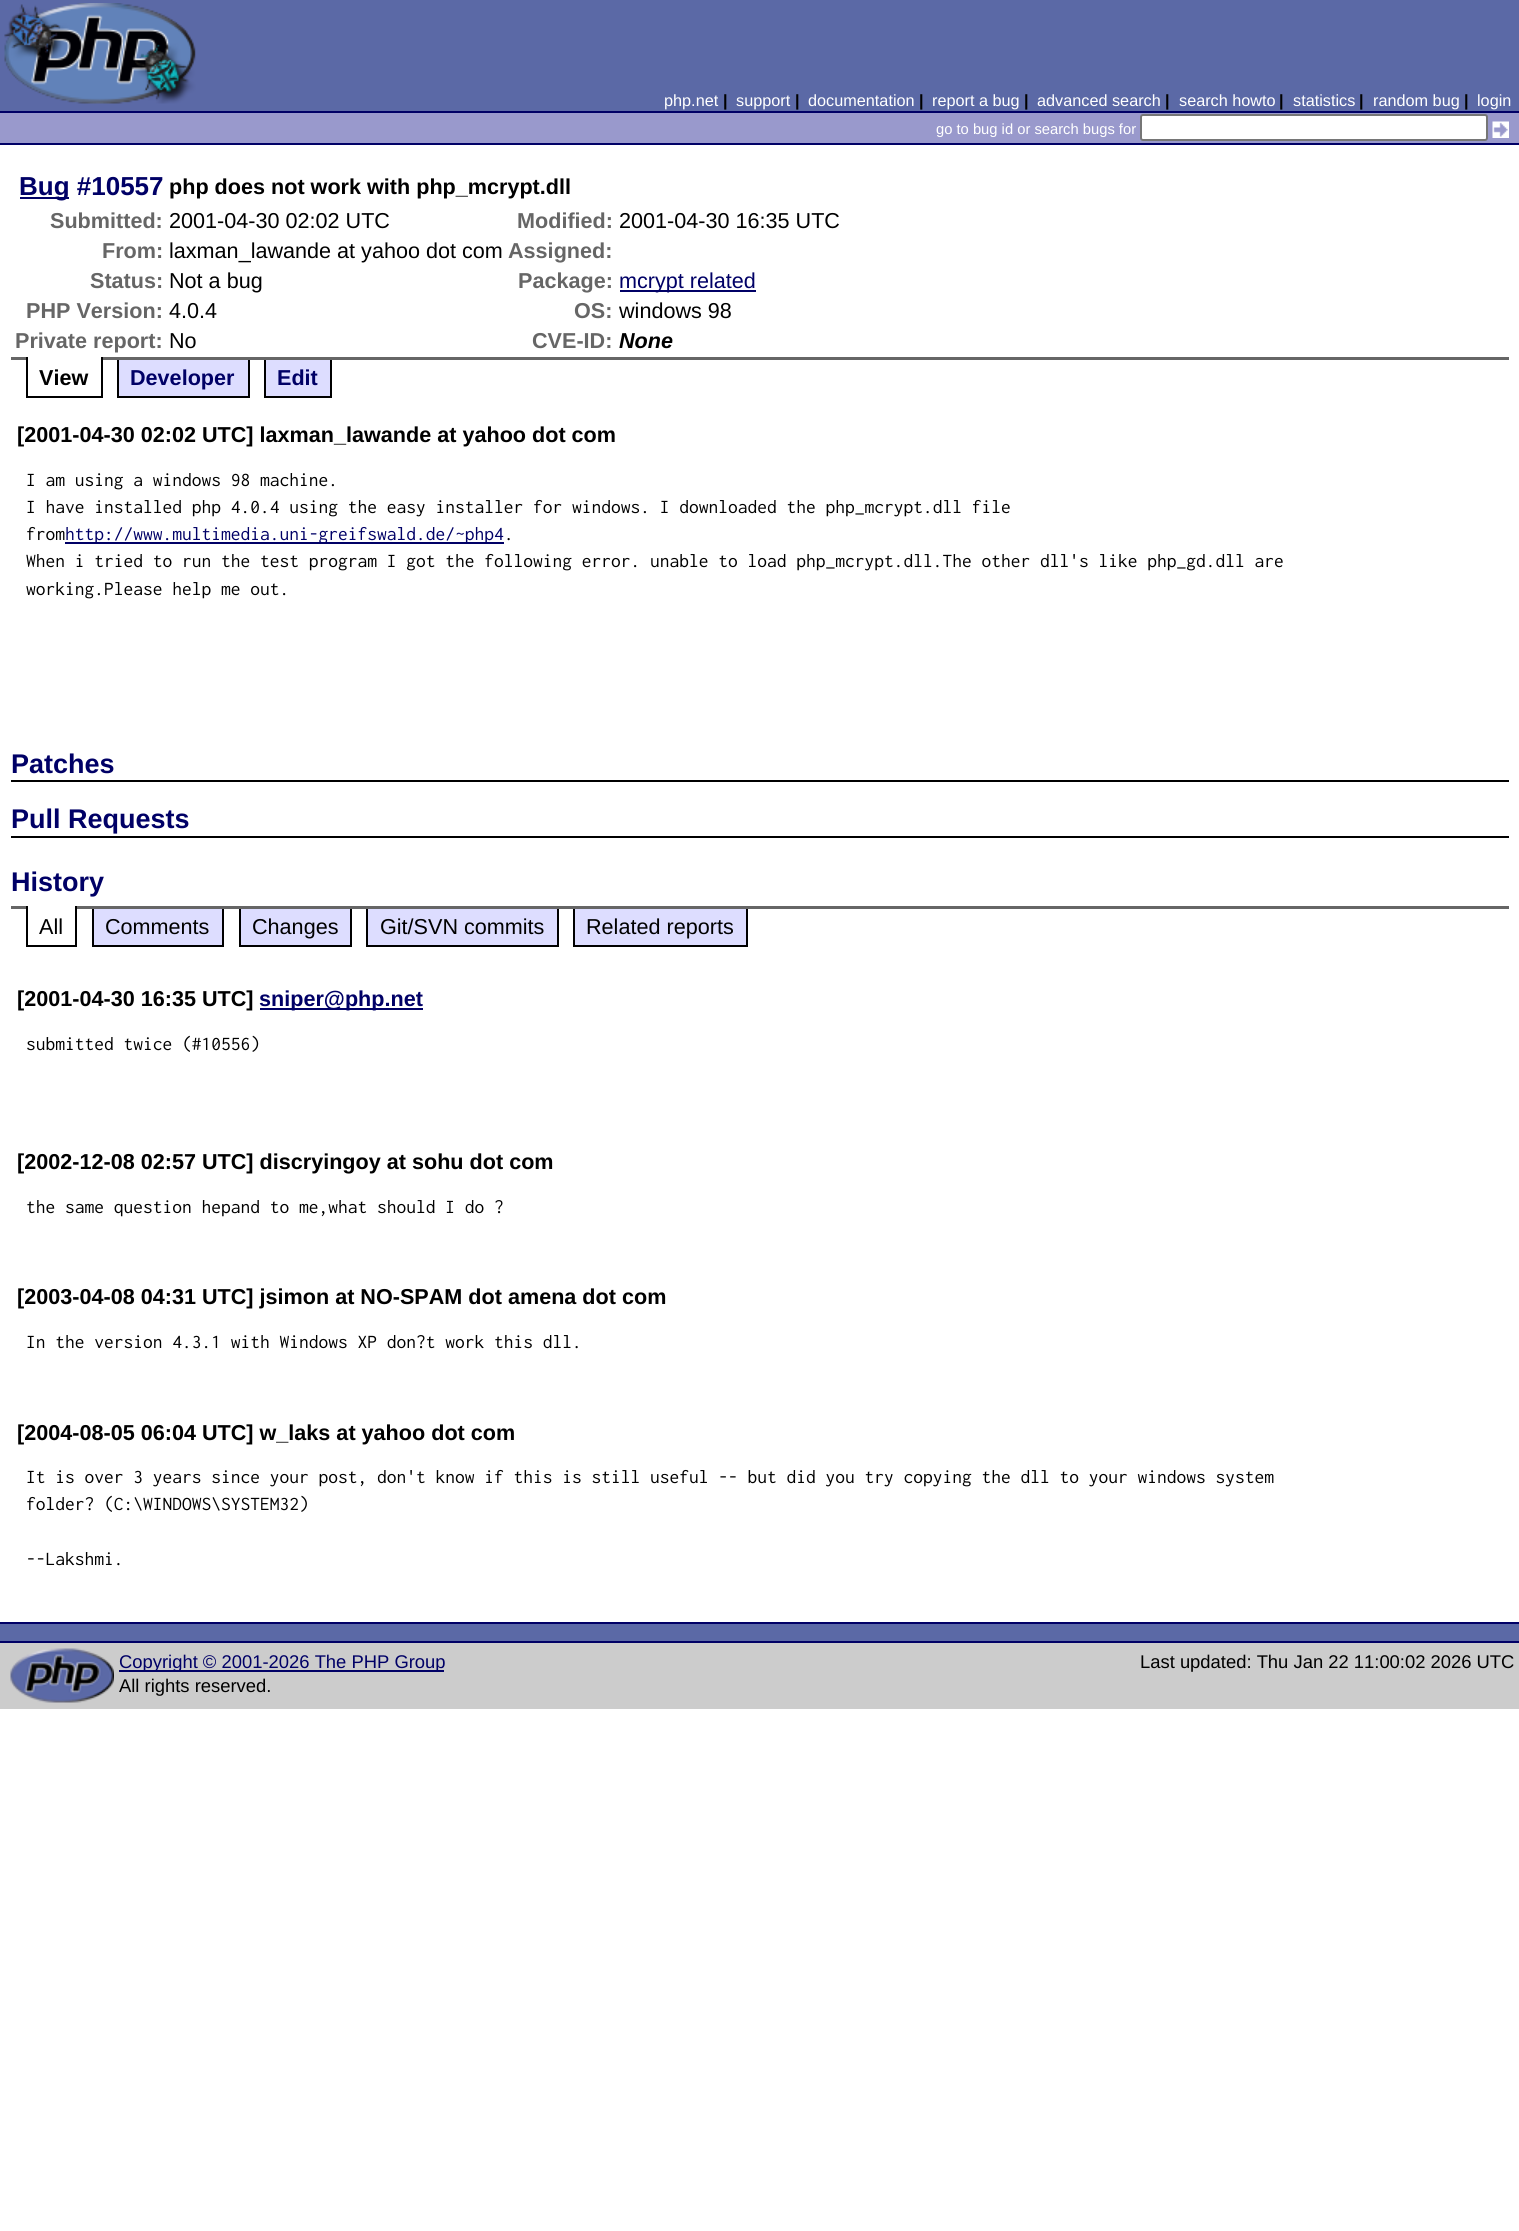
#include <cairo.h>
#include <math.h>
#include <stddef.h>

typedef struct { double x, y; const char *s; } line_t;
typedef struct { double x, y, w, h; unsigned color; } box_t;

static void ink(cairo_t *ctx, unsigned color) {
    cairo_set_source_rgb(ctx, (color >> 16) / 255.0, (color >> 8 & 255) / 255.0, (color & 255) / 255.0);
}

static void round_path(cairo_t *ctx, double x, double y, double w, double h, double r) {
    cairo_new_sub_path(ctx);
    cairo_arc(ctx, x + w - r, y + h - r, r, 0, M_PI / 2);
    cairo_arc(ctx, x + r, y + h - r, r, M_PI / 2, M_PI);
    cairo_arc(ctx, x + r, y + r, r, M_PI, 1.5 * M_PI);
    cairo_arc(ctx, x + w - r, y + r, r, 1.5 * M_PI, 2 * M_PI);
    cairo_close_path(ctx);
}

static void paste(cairo_t *ctx, const char *path, double x, double y, double w, double h) {
    cairo_surface_t *image = cairo_image_surface_create_from_png(path);
    cairo_save(ctx);
    cairo_set_source_surface(ctx, image, x, y);
    cairo_rectangle(ctx, x, y, w, h);
    cairo_fill(ctx);
    cairo_restore(ctx);
    cairo_surface_destroy(image);
}

int main(void) {
    cairo_surface_t *surface = cairo_image_surface_create(CAIRO_FORMAT_RGB24, 1519, 2231);
    cairo_t *ctx = cairo_create(surface);
    cairo_font_options_t *options = cairo_font_options_create();
    cairo_font_options_set_hint_metrics(options, CAIRO_HINT_METRICS_OFF);
    cairo_font_options_set_hint_style(options, CAIRO_HINT_STYLE_NONE);
    cairo_set_font_options(ctx, options);
    cairo_set_miter_limit(ctx, 4);
    ink(ctx, 0xFFFFFF);
    cairo_paint(ctx);
    ink(ctx, 0x5B69A6);
    cairo_rectangle(ctx, 0, 0, 1519, 111);
    cairo_fill(ctx);
    paste(ctx, "media/1.png", 4, 3, 192, 101);
    cairo_select_font_face(ctx, "Liberation Sans", CAIRO_FONT_SLANT_NORMAL, CAIRO_FONT_WEIGHT_NORMAL);
    cairo_set_font_size(ctx, 16.25);
    ink(ctx, 0xFFFFFF);
    cairo_move_to(ctx, 664, 106);
    cairo_show_text(ctx, "php.net");
    cairo_select_font_face(ctx, "Liberation Sans", CAIRO_FONT_SLANT_NORMAL, CAIRO_FONT_WEIGHT_BOLD);
    ink(ctx, 0x000000);
    cairo_move_to(ctx, 723, 106);
    cairo_show_text(ctx, "|");
    cairo_select_font_face(ctx, "Liberation Sans", CAIRO_FONT_SLANT_NORMAL, CAIRO_FONT_WEIGHT_NORMAL);
    ink(ctx, 0xFFFFFF);
    cairo_move_to(ctx, 736, 106);
    cairo_show_text(ctx, "support");
    cairo_select_font_face(ctx, "Liberation Sans", CAIRO_FONT_SLANT_NORMAL, CAIRO_FONT_WEIGHT_BOLD);
    ink(ctx, 0x000000);
    cairo_move_to(ctx, 795, 106);
    cairo_show_text(ctx, "|");
    cairo_select_font_face(ctx, "Liberation Sans", CAIRO_FONT_SLANT_NORMAL, CAIRO_FONT_WEIGHT_NORMAL);
    ink(ctx, 0xFFFFFF);
    cairo_move_to(ctx, 808, 106);
    cairo_show_text(ctx, "documentation");
    cairo_select_font_face(ctx, "Liberation Sans", CAIRO_FONT_SLANT_NORMAL, CAIRO_FONT_WEIGHT_BOLD);
    ink(ctx, 0x000000);
    cairo_move_to(ctx, 919, 106);
    cairo_show_text(ctx, "|");
    cairo_select_font_face(ctx, "Liberation Sans", CAIRO_FONT_SLANT_NORMAL, CAIRO_FONT_WEIGHT_NORMAL);
    ink(ctx, 0xFFFFFF);
    cairo_move_to(ctx, 932, 106);
    cairo_show_text(ctx, "report a bug");
    cairo_select_font_face(ctx, "Liberation Sans", CAIRO_FONT_SLANT_NORMAL, CAIRO_FONT_WEIGHT_BOLD);
    ink(ctx, 0x000000);
    cairo_move_to(ctx, 1024, 106);
    cairo_show_text(ctx, "|");
    cairo_select_font_face(ctx, "Liberation Sans", CAIRO_FONT_SLANT_NORMAL, CAIRO_FONT_WEIGHT_NORMAL);
    ink(ctx, 0xFFFFFF);
    cairo_move_to(ctx, 1037, 106);
    cairo_show_text(ctx, "advanced search");
    cairo_select_font_face(ctx, "Liberation Sans", CAIRO_FONT_SLANT_NORMAL, CAIRO_FONT_WEIGHT_BOLD);
    ink(ctx, 0x000000);
    cairo_move_to(ctx, 1165, 106);
    cairo_show_text(ctx, "|");
    cairo_select_font_face(ctx, "Liberation Sans", CAIRO_FONT_SLANT_NORMAL, CAIRO_FONT_WEIGHT_NORMAL);
    ink(ctx, 0xFFFFFF);
    cairo_move_to(ctx, 1179, 106);
    cairo_show_text(ctx, "search howto");
    cairo_select_font_face(ctx, "Liberation Sans", CAIRO_FONT_SLANT_NORMAL, CAIRO_FONT_WEIGHT_BOLD);
    ink(ctx, 0x000000);
    cairo_move_to(ctx, 1279, 106);
    cairo_show_text(ctx, "|");
    cairo_select_font_face(ctx, "Liberation Sans", CAIRO_FONT_SLANT_NORMAL, CAIRO_FONT_WEIGHT_NORMAL);
    ink(ctx, 0xFFFFFF);
    cairo_move_to(ctx, 1293, 106);
    cairo_show_text(ctx, "statistics");
    cairo_select_font_face(ctx, "Liberation Sans", CAIRO_FONT_SLANT_NORMAL, CAIRO_FONT_WEIGHT_BOLD);
    ink(ctx, 0x000000);
    cairo_move_to(ctx, 1359, 106);
    cairo_show_text(ctx, "|");
    cairo_select_font_face(ctx, "Liberation Sans", CAIRO_FONT_SLANT_NORMAL, CAIRO_FONT_WEIGHT_NORMAL);
    ink(ctx, 0xFFFFFF);
    cairo_move_to(ctx, 1373, 106);
    cairo_show_text(ctx, "random bug");
    cairo_select_font_face(ctx, "Liberation Sans", CAIRO_FONT_SLANT_NORMAL, CAIRO_FONT_WEIGHT_BOLD);
    ink(ctx, 0x000000);
    cairo_move_to(ctx, 1464, 106);
    cairo_show_text(ctx, "|");
    cairo_select_font_face(ctx, "Liberation Sans", CAIRO_FONT_SLANT_NORMAL, CAIRO_FONT_WEIGHT_NORMAL);
    ink(ctx, 0xFFFFFF);
    cairo_move_to(ctx, 1477, 106);
    cairo_show_text(ctx, "login");
    {
        static const box_t items[] = {
            {0, 113, 1519, 30, 0x9999CC},
            {0, 111, 1519, 2, 0x000066},
            {0, 143, 1519, 2, 0x000066},
        };
        for (size_t i = 0; i < sizeof items / sizeof *items; i++) {
            ink(ctx, items[i].color);
            cairo_rectangle(ctx, items[i].x, items[i].y, items[i].w, items[i].h);
            cairo_fill(ctx);
        }
    }
    cairo_set_font_size(ctx, 14.75);
    ink(ctx, 0xFFFFFF);
    cairo_move_to(ctx, 936, 134);
    cairo_show_text(ctx, "go to bug id or search bugs for");
    round_path(ctx, 1141, 115, 346, 25, 2);
    cairo_fill_preserve(ctx);
    ink(ctx, 0x767676);
    cairo_stroke(ctx);
    paste(ctx, "media/2.png", 1492, 121, 17, 17);
    ink(ctx, 0x666666);
    cairo_rectangle(ctx, 11, 357, 1498, 3);
    cairo_fill(ctx);
    ink(ctx, 0x000066);
    cairo_rectangle(ctx, 20, 197, 49, 2);
    cairo_fill(ctx);
    cairo_select_font_face(ctx, "Liberation Sans", CAIRO_FONT_SLANT_NORMAL, CAIRO_FONT_WEIGHT_BOLD);
    cairo_set_font_size(ctx, 26);
    cairo_move_to(ctx, 19, 195);
    cairo_show_text(ctx, "Bug #10557");
    cairo_set_font_size(ctx, 21.6);
    ink(ctx, 0x000000);
    cairo_move_to(ctx, 169, 194);
    cairo_show_text(ctx, "php does not work with php_mcrypt.dll");
    ink(ctx, 0x666666);
    cairo_move_to(ctx, 50, 228);
    cairo_show_text(ctx, "Submitted:");
    cairo_select_font_face(ctx, "Liberation Sans", CAIRO_FONT_SLANT_NORMAL, CAIRO_FONT_WEIGHT_NORMAL);
    ink(ctx, 0x000000);
    cairo_move_to(ctx, 169, 228);
    cairo_show_text(ctx, "2001-04-30 02:02 UTC");
    cairo_select_font_face(ctx, "Liberation Sans", CAIRO_FONT_SLANT_NORMAL, CAIRO_FONT_WEIGHT_BOLD);
    ink(ctx, 0x666666);
    cairo_move_to(ctx, 517, 228);
    cairo_show_text(ctx, "Modified:");
    cairo_select_font_face(ctx, "Liberation Sans", CAIRO_FONT_SLANT_NORMAL, CAIRO_FONT_WEIGHT_NORMAL);
    ink(ctx, 0x000000);
    cairo_move_to(ctx, 619, 228);
    cairo_show_text(ctx, "2001-04-30 16:35 UTC");
    cairo_select_font_face(ctx, "Liberation Sans", CAIRO_FONT_SLANT_NORMAL, CAIRO_FONT_WEIGHT_BOLD);
    ink(ctx, 0x666666);
    cairo_move_to(ctx, 102, 258);
    cairo_show_text(ctx, "From:");
    cairo_select_font_face(ctx, "Liberation Sans", CAIRO_FONT_SLANT_NORMAL, CAIRO_FONT_WEIGHT_NORMAL);
    ink(ctx, 0x000000);
    cairo_move_to(ctx, 169, 258);
    cairo_show_text(ctx, "laxman_lawande at yahoo dot com");
    cairo_select_font_face(ctx, "Liberation Sans", CAIRO_FONT_SLANT_NORMAL, CAIRO_FONT_WEIGHT_BOLD);
    ink(ctx, 0x666666);
    cairo_move_to(ctx, 508, 258);
    cairo_show_text(ctx, "Assigned:");
    cairo_move_to(ctx, 90, 288);
    cairo_show_text(ctx, "Status:");
    cairo_select_font_face(ctx, "Liberation Sans", CAIRO_FONT_SLANT_NORMAL, CAIRO_FONT_WEIGHT_NORMAL);
    ink(ctx, 0x000000);
    cairo_move_to(ctx, 169, 288);
    cairo_show_text(ctx, "Not a bug");
    cairo_select_font_face(ctx, "Liberation Sans", CAIRO_FONT_SLANT_NORMAL, CAIRO_FONT_WEIGHT_BOLD);
    ink(ctx, 0x666666);
    cairo_move_to(ctx, 518, 288);
    cairo_show_text(ctx, "Package:");
    ink(ctx, 0x000066);
    cairo_rectangle(ctx, 620, 290, 136, 2);
    cairo_fill(ctx);
    cairo_select_font_face(ctx, "Liberation Sans", CAIRO_FONT_SLANT_NORMAL, CAIRO_FONT_WEIGHT_NORMAL);
    cairo_move_to(ctx, 619, 288);
    cairo_show_text(ctx, "mcrypt related");
    cairo_select_font_face(ctx, "Liberation Sans", CAIRO_FONT_SLANT_NORMAL, CAIRO_FONT_WEIGHT_BOLD);
    ink(ctx, 0x666666);
    cairo_move_to(ctx, 26, 318);
    cairo_show_text(ctx, "PHP Version:");
    cairo_select_font_face(ctx, "Liberation Sans", CAIRO_FONT_SLANT_NORMAL, CAIRO_FONT_WEIGHT_NORMAL);
    ink(ctx, 0x000000);
    cairo_move_to(ctx, 169, 318);
    cairo_show_text(ctx, "4.0.4");
    cairo_select_font_face(ctx, "Liberation Sans", CAIRO_FONT_SLANT_NORMAL, CAIRO_FONT_WEIGHT_BOLD);
    ink(ctx, 0x666666);
    cairo_move_to(ctx, 574, 318);
    cairo_show_text(ctx, "OS:");
    cairo_select_font_face(ctx, "Liberation Sans", CAIRO_FONT_SLANT_NORMAL, CAIRO_FONT_WEIGHT_NORMAL);
    ink(ctx, 0x000000);
    cairo_move_to(ctx, 619, 318);
    cairo_show_text(ctx, "windows 98");
    cairo_select_font_face(ctx, "Liberation Sans", CAIRO_FONT_SLANT_NORMAL, CAIRO_FONT_WEIGHT_BOLD);
    ink(ctx, 0x666666);
    cairo_move_to(ctx, 15, 348);
    cairo_show_text(ctx, "Private report:");
    cairo_select_font_face(ctx, "Liberation Sans", CAIRO_FONT_SLANT_NORMAL, CAIRO_FONT_WEIGHT_NORMAL);
    ink(ctx, 0x000000);
    cairo_move_to(ctx, 169, 348);
    cairo_show_text(ctx, "No");
    cairo_select_font_face(ctx, "Liberation Sans", CAIRO_FONT_SLANT_NORMAL, CAIRO_FONT_WEIGHT_BOLD);
    ink(ctx, 0x666666);
    cairo_move_to(ctx, 532, 348);
    cairo_show_text(ctx, "CVE-ID:");
    cairo_select_font_face(ctx, "Liberation Sans", CAIRO_FONT_SLANT_ITALIC, CAIRO_FONT_WEIGHT_BOLD);
    ink(ctx, 0x000000);
    cairo_move_to(ctx, 619, 348);
    cairo_show_text(ctx, "None");
    {
        static const box_t items[] = {
            {28, 357, 73, 3, 0xFFFFFF},
            {101, 357, 2, 41, 0x000000},
            {26, 396, 76, 2, 0x000000},
            {26, 357, 2, 41, 0x000000},
        };
        for (size_t i = 0; i < sizeof items / sizeof *items; i++) {
            ink(ctx, items[i].color);
            cairo_rectangle(ctx, items[i].x, items[i].y, items[i].w, items[i].h);
            cairo_fill(ctx);
        }
    }
    cairo_select_font_face(ctx, "Liberation Sans", CAIRO_FONT_SLANT_NORMAL, CAIRO_FONT_WEIGHT_BOLD);
    cairo_move_to(ctx, 39, 385);
    cairo_show_text(ctx, "View");
    {
        static const box_t items[] = {
            {119, 360, 129, 36, 0xDDDDFF},
            {248, 360, 2, 38, 0x000000},
            {117, 396, 132, 2, 0x000000},
            {117, 360, 2, 38, 0x000000},
        };
        for (size_t i = 0; i < sizeof items / sizeof *items; i++) {
            ink(ctx, items[i].color);
            cairo_rectangle(ctx, items[i].x, items[i].y, items[i].w, items[i].h);
            cairo_fill(ctx);
        }
    }
    ink(ctx, 0x000066);
    cairo_move_to(ctx, 130, 385);
    cairo_show_text(ctx, "Developer");
    {
        static const box_t items[] = {
            {266, 360, 64, 36, 0xDDDDFF},
            {330, 360, 2, 38, 0x000000},
            {264, 396, 68, 2, 0x000000},
            {264, 360, 2, 38, 0x000000},
        };
        for (size_t i = 0; i < sizeof items / sizeof *items; i++) {
            ink(ctx, items[i].color);
            cairo_rectangle(ctx, items[i].x, items[i].y, items[i].w, items[i].h);
            cairo_fill(ctx);
        }
    }
    ink(ctx, 0x000066);
    cairo_move_to(ctx, 277, 385);
    cairo_show_text(ctx, "Edit");
    ink(ctx, 0x000000);
    cairo_move_to(ctx, 17, 442);
    cairo_show_text(ctx, "[2001-04-30 02:02 UTC] laxman_lawande at yahoo dot com");
    cairo_select_font_face(ctx, "Inconsolata", CAIRO_FONT_SLANT_NORMAL, CAIRO_FONT_WEIGHT_NORMAL);
    cairo_set_font_size(ctx, 19.5);
    {
        static const line_t items[] = {
            {26, 486, "I am using a windows 98 machine."},
            {26, 513, "I have installed php 4.0.4 using the easy installer for windows. I downloaded the php_mcrypt.dll file"},
            {26, 540, "from"},
        };
        for (size_t i = 0; i < sizeof items / sizeof *items; i++) {
            cairo_move_to(ctx, items[i].x, items[i].y);
            cairo_show_text(ctx, items[i].s);
        }
    }
    ink(ctx, 0x000066);
    cairo_rectangle(ctx, 65, 542, 439, 2);
    cairo_fill(ctx);
    cairo_move_to(ctx, 65, 540);
    cairo_show_text(ctx, "http://www.multimedia.uni-greifswald.de/~php4");
    ink(ctx, 0x000000);
    {
        static const line_t items[] = {
            {504, 540, "."},
            {26, 567, "When i tried to run the test program I got the following error. unable to load php_mcrypt.dll.The other dll's like php_gd.dll are"},
            {26, 595, "working.Please help me out."},
        };
        for (size_t i = 0; i < sizeof items / sizeof *items; i++) {
            cairo_move_to(ctx, items[i].x, items[i].y);
            cairo_show_text(ctx, items[i].s);
        }
    }
    cairo_rectangle(ctx, 11, 780, 1498, 2);
    cairo_fill(ctx);
    cairo_select_font_face(ctx, "Liberation Sans", CAIRO_FONT_SLANT_NORMAL, CAIRO_FONT_WEIGHT_BOLD);
    cairo_set_font_size(ctx, 27);
    ink(ctx, 0x000066);
    cairo_move_to(ctx, 11, 773);
    cairo_show_text(ctx, "Patches");
    ink(ctx, 0x000000);
    cairo_rectangle(ctx, 11, 836, 1498, 2);
    cairo_fill(ctx);
    ink(ctx, 0x000066);
    cairo_move_to(ctx, 11, 828);
    cairo_show_text(ctx, "Pull Requests");
    ink(ctx, 0x666666);
    cairo_rectangle(ctx, 11, 906, 1498, 3);
    cairo_fill(ctx);
    ink(ctx, 0x000066);
    cairo_move_to(ctx, 11, 891);
    cairo_show_text(ctx, "History");
    {
        static const box_t items[] = {
            {28, 906, 47, 3, 0xFFFFFF},
            {75, 906, 2, 41, 0x000000},
            {26, 945, 51, 2, 0x000000},
            {26, 906, 2, 41, 0x000000},
        };
        for (size_t i = 0; i < sizeof items / sizeof *items; i++) {
            ink(ctx, items[i].color);
            cairo_rectangle(ctx, items[i].x, items[i].y, items[i].w, items[i].h);
            cairo_fill(ctx);
        }
    }
    cairo_select_font_face(ctx, "Liberation Sans", CAIRO_FONT_SLANT_NORMAL, CAIRO_FONT_WEIGHT_NORMAL);
    cairo_set_font_size(ctx, 21.6);
    cairo_move_to(ctx, 39, 934);
    cairo_show_text(ctx, "All");
    {
        static const box_t items[] = {
            {94, 909, 128, 36, 0xDDDDFF},
            {222, 909, 2, 38, 0x000000},
            {92, 945, 132, 2, 0x000000},
            {92, 909, 2, 38, 0x000000},
        };
        for (size_t i = 0; i < sizeof items / sizeof *items; i++) {
            ink(ctx, items[i].color);
            cairo_rectangle(ctx, items[i].x, items[i].y, items[i].w, items[i].h);
            cairo_fill(ctx);
        }
    }
    cairo_move_to(ctx, 105, 934);
    cairo_show_text(ctx, "Comments");
    {
        static const box_t items[] = {
            {241, 909, 109, 36, 0xDDDDFF},
            {350, 909, 2, 38, 0x000000},
            {239, 945, 112, 2, 0x000000},
            {239, 909, 2, 38, 0x000000},
        };
        for (size_t i = 0; i < sizeof items / sizeof *items; i++) {
            ink(ctx, items[i].color);
            cairo_rectangle(ctx, items[i].x, items[i].y, items[i].w, items[i].h);
            cairo_fill(ctx);
        }
    }
    cairo_move_to(ctx, 252, 934);
    cairo_show_text(ctx, "Changes");
    {
        static const box_t items[] = {
            {368, 909, 189, 36, 0xDDDDFF},
            {557, 909, 2, 38, 0x000000},
            {366, 945, 192, 2, 0x000000},
            {366, 909, 2, 38, 0x000000},
        };
        for (size_t i = 0; i < sizeof items / sizeof *items; i++) {
            ink(ctx, items[i].color);
            cairo_rectangle(ctx, items[i].x, items[i].y, items[i].w, items[i].h);
            cairo_fill(ctx);
        }
    }
    cairo_move_to(ctx, 380, 934);
    cairo_show_text(ctx, "Git/SVN commits");
    {
        static const box_t items[] = {
            {575, 909, 171, 36, 0xDDDDFF},
            {746, 909, 2, 38, 0x000000},
            {573, 945, 174, 2, 0x000000},
            {573, 909, 2, 38, 0x000000},
        };
        for (size_t i = 0; i < sizeof items / sizeof *items; i++) {
            ink(ctx, items[i].color);
            cairo_rectangle(ctx, items[i].x, items[i].y, items[i].w, items[i].h);
            cairo_fill(ctx);
        }
    }
    cairo_move_to(ctx, 586, 934);
    cairo_show_text(ctx, "Related reports");
    cairo_select_font_face(ctx, "Liberation Sans", CAIRO_FONT_SLANT_NORMAL, CAIRO_FONT_WEIGHT_BOLD);
    cairo_move_to(ctx, 17, 1006);
    cairo_show_text(ctx, "[2001-04-30 16:35 UTC]");
    ink(ctx, 0x000066);
    cairo_rectangle(ctx, 260, 1008, 163, 2);
    cairo_fill(ctx);
    cairo_move_to(ctx, 259, 1006);
    cairo_show_text(ctx, "sniper@php.net");
    cairo_select_font_face(ctx, "Inconsolata", CAIRO_FONT_SLANT_NORMAL, CAIRO_FONT_WEIGHT_NORMAL);
    cairo_set_font_size(ctx, 19.5);
    ink(ctx, 0x000000);
    cairo_move_to(ctx, 26, 1050);
    cairo_show_text(ctx, "submitted twice (#10556)");
    cairo_select_font_face(ctx, "Liberation Sans", CAIRO_FONT_SLANT_NORMAL, CAIRO_FONT_WEIGHT_BOLD);
    cairo_set_font_size(ctx, 21.6);
    cairo_move_to(ctx, 17, 1169);
    cairo_show_text(ctx, "[2002-12-08 02:57 UTC] discryingoy at sohu dot com");
    cairo_select_font_face(ctx, "Inconsolata", CAIRO_FONT_SLANT_NORMAL, CAIRO_FONT_WEIGHT_NORMAL);
    cairo_set_font_size(ctx, 19.5);
    cairo_move_to(ctx, 26, 1213);
    cairo_show_text(ctx, "the same question hepand to me,what should I do ?");
    cairo_select_font_face(ctx, "Liberation Sans", CAIRO_FONT_SLANT_NORMAL, CAIRO_FONT_WEIGHT_BOLD);
    cairo_set_font_size(ctx, 21.6);
    cairo_move_to(ctx, 17, 1304);
    cairo_show_text(ctx, "[2003-04-08 04:31 UTC] jsimon at NO-SPAM dot amena dot com");
    cairo_select_font_face(ctx, "Inconsolata", CAIRO_FONT_SLANT_NORMAL, CAIRO_FONT_WEIGHT_NORMAL);
    cairo_set_font_size(ctx, 19.5);
    cairo_move_to(ctx, 26, 1348);
    cairo_show_text(ctx, "In the version 4.3.1 with Windows XP don?t work this dll.");
    cairo_select_font_face(ctx, "Liberation Sans", CAIRO_FONT_SLANT_NORMAL, CAIRO_FONT_WEIGHT_BOLD);
    cairo_set_font_size(ctx, 21.6);
    cairo_move_to(ctx, 17, 1440);
    cairo_show_text(ctx, "[2004-08-05 06:04 UTC] w_laks at yahoo dot com");
    cairo_select_font_face(ctx, "Inconsolata", CAIRO_FONT_SLANT_NORMAL, CAIRO_FONT_WEIGHT_NORMAL);
    cairo_set_font_size(ctx, 19.5);
    {
        static const line_t items[] = {
            {26, 1483, "It is over 3 years since your post, don't know if this is still useful -- but did you try copying the dll to your windows system"},
            {26, 1510, "folder? (C:\\WINDOWS\\SYSTEM32)"},
            {26, 1565, "--Lakshmi."},
        };
        for (size_t i = 0; i < sizeof items / sizeof *items; i++) {
            cairo_move_to(ctx, items[i].x, items[i].y);
            cairo_show_text(ctx, items[i].s);
        }
    }
    {
        static const box_t items[] = {
            {0, 1624, 1519, 17, 0x5B69A6},
            {0, 1622, 1519, 2, 0x000066},
            {0, 1641, 1519, 2, 0x000066},
            {0, 1643, 1519, 66, 0xCCCCCC},
        };
        for (size_t i = 0; i < sizeof items / sizeof *items; i++) {
            ink(ctx, items[i].color);
            cairo_rectangle(ctx, items[i].x, items[i].y, items[i].w, items[i].h);
            cairo_fill(ctx);
        }
    }
    paste(ctx, "media/3.png", 10, 1648, 104, 55);
    ink(ctx, 0x000066);
    cairo_rectangle(ctx, 119, 1670, 325, 2);
    cairo_fill(ctx);
    cairo_select_font_face(ctx, "Liberation Sans", CAIRO_FONT_SLANT_NORMAL, CAIRO_FONT_WEIGHT_NORMAL);
    cairo_set_font_size(ctx, 18.4);
    cairo_move_to(ctx, 119, 1668);
    cairo_show_text(ctx, "Copyright © 2001-2026 The PHP Group");
    ink(ctx, 0x000000);
    cairo_move_to(ctx, 119, 1692);
    cairo_show_text(ctx, "All rights reserved.");
    cairo_move_to(ctx, 1140, 1668);
    cairo_show_text(ctx, "Last updated: Thu Jan 22 11:00:02 2026 UTC");
    cairo_surface_write_to_png(surface, "image.png");
    cairo_font_options_destroy(options);
    cairo_destroy(ctx);
    cairo_surface_destroy(surface);
    return 0;
}
